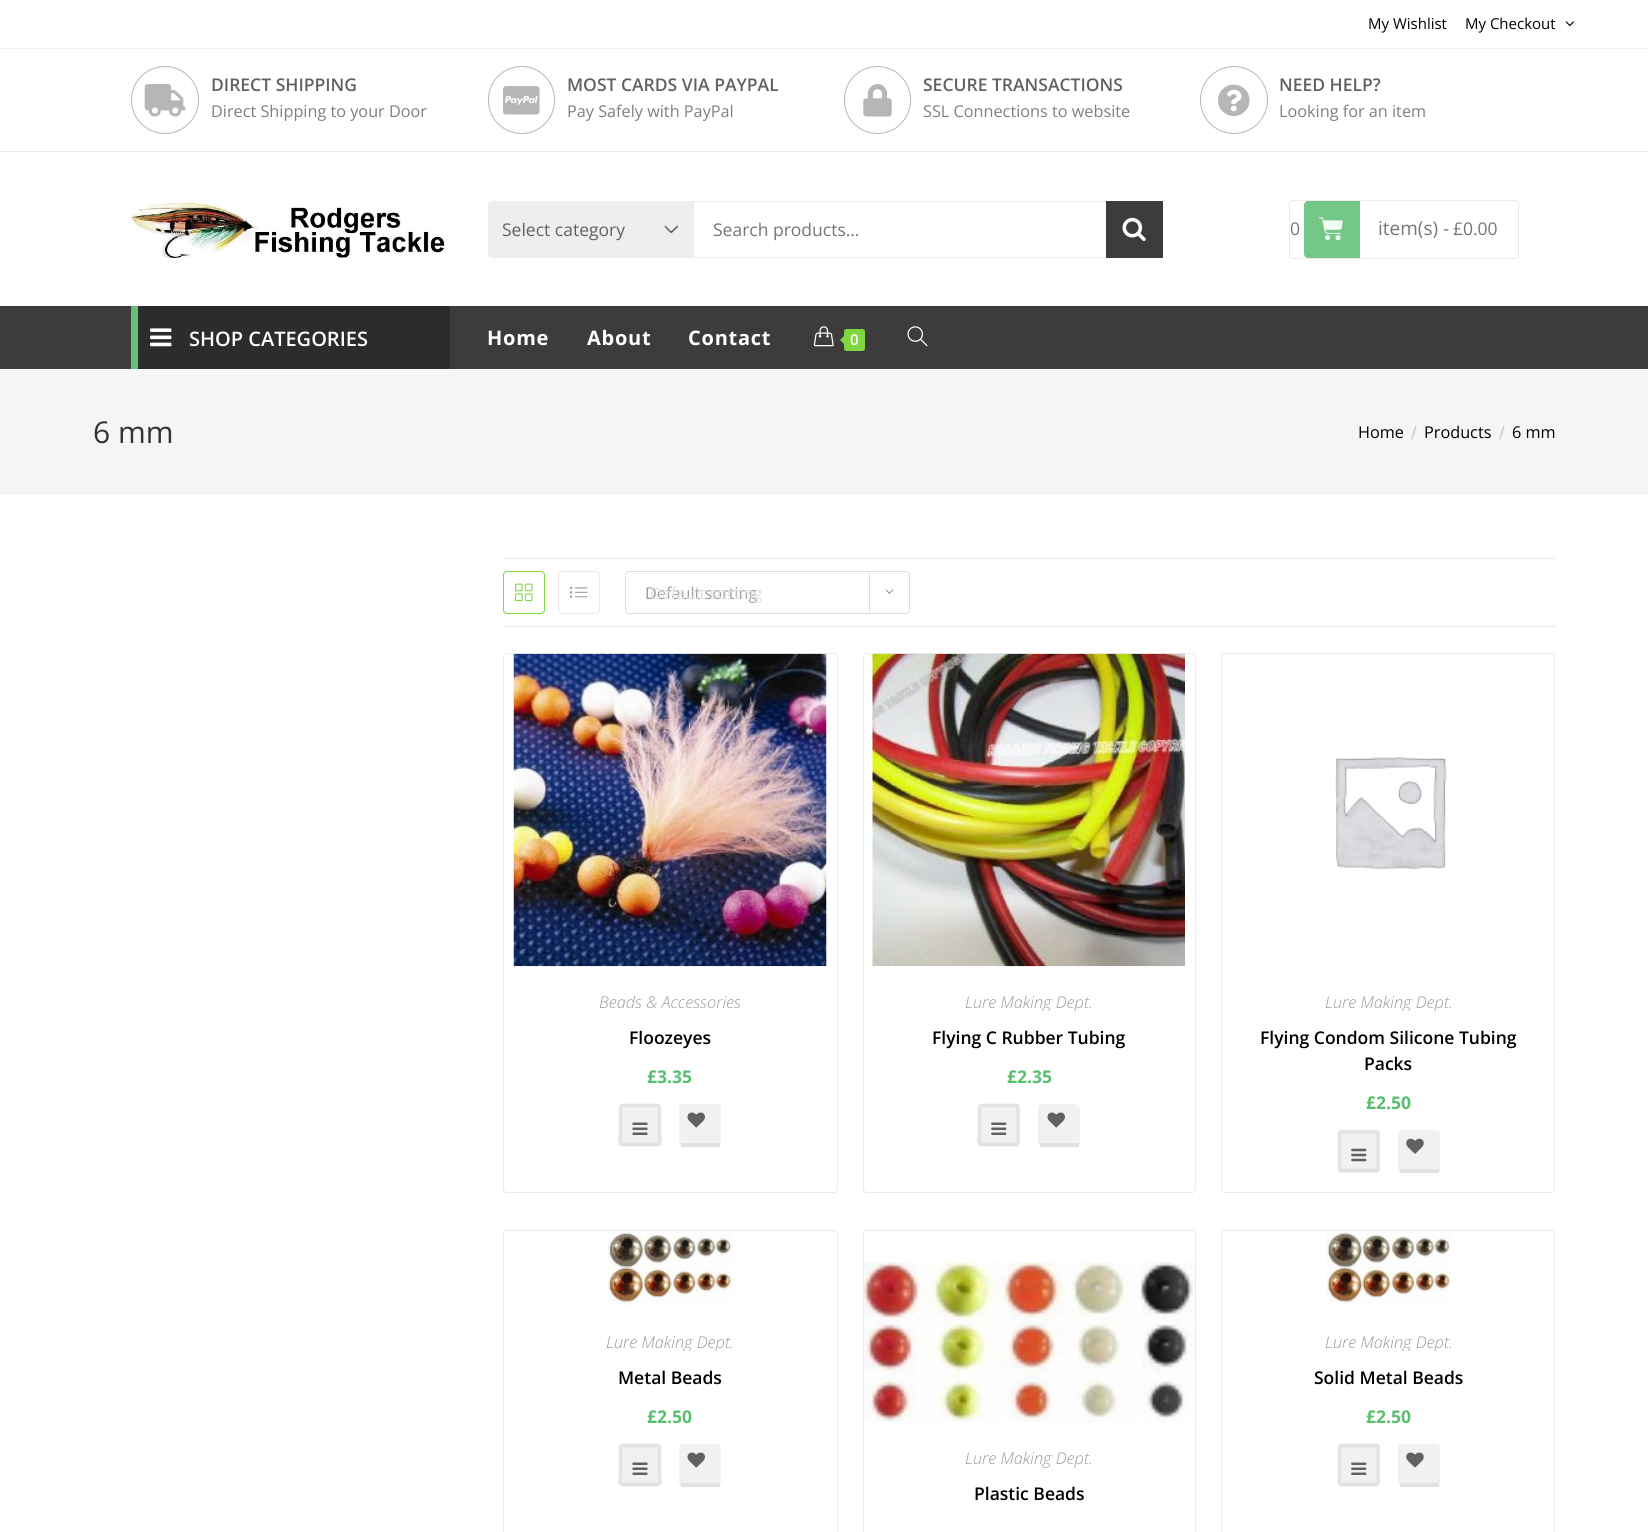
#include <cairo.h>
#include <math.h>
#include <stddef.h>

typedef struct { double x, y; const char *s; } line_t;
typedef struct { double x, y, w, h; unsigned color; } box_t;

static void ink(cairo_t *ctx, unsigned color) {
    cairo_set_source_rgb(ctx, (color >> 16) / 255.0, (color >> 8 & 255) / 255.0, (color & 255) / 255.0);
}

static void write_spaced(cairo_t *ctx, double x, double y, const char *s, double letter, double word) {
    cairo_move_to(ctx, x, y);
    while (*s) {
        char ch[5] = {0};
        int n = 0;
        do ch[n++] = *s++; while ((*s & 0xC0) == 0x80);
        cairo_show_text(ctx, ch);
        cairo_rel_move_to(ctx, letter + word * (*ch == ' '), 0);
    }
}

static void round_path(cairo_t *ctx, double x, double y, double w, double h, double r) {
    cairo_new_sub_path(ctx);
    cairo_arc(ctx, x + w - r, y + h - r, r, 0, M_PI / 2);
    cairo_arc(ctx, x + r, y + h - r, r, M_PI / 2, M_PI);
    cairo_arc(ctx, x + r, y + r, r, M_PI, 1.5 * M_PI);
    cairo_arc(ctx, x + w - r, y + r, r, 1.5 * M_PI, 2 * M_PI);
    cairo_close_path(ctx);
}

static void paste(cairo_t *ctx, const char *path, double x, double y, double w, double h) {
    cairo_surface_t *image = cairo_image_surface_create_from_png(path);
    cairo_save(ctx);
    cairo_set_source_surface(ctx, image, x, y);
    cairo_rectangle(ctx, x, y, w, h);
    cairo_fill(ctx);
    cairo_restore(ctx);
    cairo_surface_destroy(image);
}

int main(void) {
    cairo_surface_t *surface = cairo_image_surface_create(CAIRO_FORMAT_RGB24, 1648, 1532);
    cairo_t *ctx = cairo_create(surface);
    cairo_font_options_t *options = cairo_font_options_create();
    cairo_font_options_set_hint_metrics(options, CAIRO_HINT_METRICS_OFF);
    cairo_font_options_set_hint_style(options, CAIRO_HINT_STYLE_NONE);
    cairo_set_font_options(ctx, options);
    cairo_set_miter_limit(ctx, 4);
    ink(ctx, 0xFFFFFF);
    cairo_paint(ctx);
    ink(ctx, 0xF1F1F1);
    cairo_rectangle(ctx, 0, 48, 1648, 1);
    cairo_fill(ctx);
    cairo_select_font_face(ctx, "Open Sans", CAIRO_FONT_SLANT_NORMAL, CAIRO_FONT_WEIGHT_NORMAL);
    cairo_set_font_size(ctx, 15);
    ink(ctx, 0x000000);
    cairo_move_to(ctx, 1368, 29);
    cairo_show_text(ctx, "My Wishlist");
    cairo_move_to(ctx, 1465, 29);
    cairo_show_text(ctx, "My Checkout");
    paste(ctx, "media/1.png", 1565, 21, 9, 6);
    ink(ctx, 0xEAEAEA);
    cairo_rectangle(ctx, 0, 151, 1648, 1);
    cairo_fill(ctx);
    cairo_arc(ctx, 165, 100, 33.5, 0, 2 * M_PI);
    ink(ctx, 0xB6B6B6);
    cairo_set_line_width(ctx, 1);
    cairo_stroke(ctx);
    paste(ctx, "media/2.png", 144, 84, 42, 33);
    cairo_select_font_face(ctx, "Open Sans SemiBold", CAIRO_FONT_SLANT_NORMAL, CAIRO_FONT_WEIGHT_NORMAL);
    cairo_set_font_size(ctx, 17.5);
    ink(ctx, 0x616161);
    cairo_move_to(ctx, 211, 91);
    cairo_show_text(ctx, "DIRECT SHIPPING");
    cairo_select_font_face(ctx, "Open Sans", CAIRO_FONT_SLANT_NORMAL, CAIRO_FONT_WEIGHT_NORMAL);
    cairo_set_font_size(ctx, 16.25);
    ink(ctx, 0x7F7F7F);
    cairo_move_to(ctx, 211, 117);
    cairo_show_text(ctx, "Direct Shipping to your Door");
    round_path(ctx, 488.5, 66.5, 66, 67, 33);
    ink(ctx, 0xB6B6B6);
    cairo_stroke(ctx);
    paste(ctx, "media/3.png", 503, 86, 37, 29);
    cairo_select_font_face(ctx, "Open Sans SemiBold", CAIRO_FONT_SLANT_NORMAL, CAIRO_FONT_WEIGHT_NORMAL);
    cairo_set_font_size(ctx, 17.5);
    ink(ctx, 0x616161);
    cairo_move_to(ctx, 567, 91);
    cairo_show_text(ctx, "MOST CARDS VIA PAYPAL");
    cairo_select_font_face(ctx, "Open Sans", CAIRO_FONT_SLANT_NORMAL, CAIRO_FONT_WEIGHT_NORMAL);
    cairo_set_font_size(ctx, 16.25);
    ink(ctx, 0x7F7F7F);
    cairo_move_to(ctx, 567, 117);
    cairo_show_text(ctx, "Pay Safely with PayPal");
    round_path(ctx, 844.5, 66.5, 66, 67, 33);
    ink(ctx, 0xB6B6B6);
    cairo_stroke(ctx);
    paste(ctx, "media/4.png", 863, 84, 29, 33);
    cairo_select_font_face(ctx, "Open Sans SemiBold", CAIRO_FONT_SLANT_NORMAL, CAIRO_FONT_WEIGHT_NORMAL);
    cairo_set_font_size(ctx, 17.5);
    ink(ctx, 0x616161);
    cairo_move_to(ctx, 923, 91);
    cairo_show_text(ctx, "SECURE TRANSACTIONS");
    cairo_select_font_face(ctx, "Open Sans", CAIRO_FONT_SLANT_NORMAL, CAIRO_FONT_WEIGHT_NORMAL);
    cairo_set_font_size(ctx, 16.25);
    ink(ctx, 0x7F7F7F);
    cairo_move_to(ctx, 923, 117);
    cairo_show_text(ctx, "SSL Connections to website");
    cairo_new_path(ctx);
    cairo_arc(ctx, 1234, 100, 33.5, 0, 2 * M_PI);
    ink(ctx, 0xB6B6B6);
    cairo_stroke(ctx);
    paste(ctx, "media/5.png", 1218, 84, 32, 32);
    cairo_select_font_face(ctx, "Open Sans SemiBold", CAIRO_FONT_SLANT_NORMAL, CAIRO_FONT_WEIGHT_NORMAL);
    cairo_set_font_size(ctx, 17.5);
    ink(ctx, 0x616161);
    cairo_move_to(ctx, 1279, 91);
    cairo_show_text(ctx, "NEED HELP?");
    cairo_select_font_face(ctx, "Open Sans", CAIRO_FONT_SLANT_NORMAL, CAIRO_FONT_WEIGHT_NORMAL);
    cairo_set_font_size(ctx, 16.25);
    ink(ctx, 0x7F7F7F);
    cairo_move_to(ctx, 1279, 117);
    cairo_show_text(ctx, "Looking for an item");
    paste(ctx, "media/6.png", 131, 197, 317, 62);
    round_path(ctx, 488.5, 201.5, 674, 56, 3.5);
    ink(ctx, 0xEEEEEE);
    cairo_stroke(ctx);
    cairo_new_path(ctx);
    cairo_move_to(ctx, 492, 201);
    cairo_line_to(ctx, 694, 201);
    cairo_line_to(ctx, 694, 258);
    cairo_line_to(ctx, 492, 258);
    cairo_curve_to(ctx, 490, 258, 488, 256, 488, 254);
    cairo_line_to(ctx, 488, 205);
    cairo_curve_to(ctx, 488, 203, 490, 201, 492, 201);
    cairo_close_path(ctx);
    cairo_fill(ctx);
    paste(ctx, "media/7.png", 664, 225, 15, 9);
    cairo_set_font_size(ctx, 17.5);
    ink(ctx, 0x616161);
    cairo_move_to(ctx, 502, 236);
    cairo_show_text(ctx, "Select category");
    ink(ctx, 0x757575);
    cairo_move_to(ctx, 713, 236);
    cairo_show_text(ctx, "Search products…");
    ink(ctx, 0x3C3C3C);
    cairo_rectangle(ctx, 1106, 201, 57, 57);
    cairo_fill(ctx);
    paste(ctx, "media/8.png", 1122, 217, 24, 24);
    round_path(ctx, 1289.5, 200.5, 229, 58, 3.5);
    ink(ctx, 0xECECEC);
    cairo_stroke(ctx);
    ink(ctx, 0x757575);
    cairo_move_to(ctx, 1290, 235);
    cairo_show_text(ctx, "0");
    ink(ctx, 0x74C786);
    cairo_new_path(ctx);
    cairo_move_to(ctx, 1308, 201);
    cairo_line_to(ctx, 1360, 201);
    cairo_line_to(ctx, 1360, 258);
    cairo_line_to(ctx, 1308, 258);
    cairo_curve_to(ctx, 1306, 258, 1304, 256, 1304, 254);
    cairo_line_to(ctx, 1304, 205);
    cairo_curve_to(ctx, 1304, 203, 1306, 201, 1308, 201);
    cairo_close_path(ctx);
    cairo_fill(ctx);
    paste(ctx, "media/9.png", 1318, 217, 25, 24);
    cairo_set_font_size(ctx, 19);
    ink(ctx, 0x757575);
    cairo_move_to(ctx, 1378, 235);
    cairo_show_text(ctx, "item(s) -");
    cairo_set_font_size(ctx, 17.5);
    cairo_move_to(ctx, 1453, 235);
    cairo_show_text(ctx, "£0.00");
    {
        static const box_t items[] = {
            {0, 306, 1648, 63, 0x3C3C3C},
            {138, 306, 312, 63, 0x2D2C2C},
            {131, 306, 7, 63, 0x65C178},
        };
        for (size_t i = 0; i < sizeof items / sizeof *items; i++) {
            ink(ctx, items[i].color);
            cairo_rectangle(ctx, items[i].x, items[i].y, items[i].w, items[i].h);
            cairo_fill(ctx);
        }
    }
    paste(ctx, "media/10.png", 150, 328, 22, 19);
    cairo_select_font_face(ctx, "Open Sans SemiBold", CAIRO_FONT_SLANT_NORMAL, CAIRO_FONT_WEIGHT_NORMAL);
    cairo_set_font_size(ctx, 20);
    ink(ctx, 0xFFFFFF);
    cairo_move_to(ctx, 189, 346);
    cairo_show_text(ctx, "SHOP CATEGORIES");
    cairo_select_font_face(ctx, "Open Sans", CAIRO_FONT_SLANT_NORMAL, CAIRO_FONT_WEIGHT_BOLD);
    {
        static const line_t items[] = {
            {487, 345, "Home"},
            {587, 345, "About"},
            {688, 345, "Contact"},
        };
        for (size_t i = 0; i < sizeof items / sizeof *items; i++) {
            write_spaced(ctx, items[i].x, items[i].y, items[i].s, 0.75, 0);
        }
    }
    paste(ctx, "media/11.png", 813, 326, 21, 21);
    ink(ctx, 0x81D742);
    round_path(ctx, 844, 329, 21, 22, 2.5);
    cairo_fill(ctx);
    cairo_new_path(ctx);
    cairo_move_to(ctx, 846, 334);
    cairo_line_to(ctx, 846, 346);
    cairo_line_to(ctx, 840, 340);
    cairo_close_path(ctx);
    cairo_fill(ctx);
    cairo_select_font_face(ctx, "Open Sans SemiBold", CAIRO_FONT_SLANT_NORMAL, CAIRO_FONT_WEIGHT_NORMAL);
    cairo_set_font_size(ctx, 15);
    ink(ctx, 0xFFFFFF);
    cairo_move_to(ctx, 850, 345);
    cairo_show_text(ctx, "0");
    paste(ctx, "media/12.png", 907, 326, 21, 21);
    ink(ctx, 0xF5F5F5);
    cairo_rectangle(ctx, 0, 369, 1648, 126);
    cairo_fill(ctx);
    cairo_select_font_face(ctx, "Open Sans", CAIRO_FONT_SLANT_NORMAL, CAIRO_FONT_WEIGHT_NORMAL);
    cairo_set_font_size(ctx, 30);
    ink(ctx, 0x333333);
    cairo_move_to(ctx, 93, 443);
    cairo_show_text(ctx, "6 mm");
    cairo_set_font_size(ctx, 16.25);
    ink(ctx, 0x000000);
    cairo_move_to(ctx, 1358, 438);
    cairo_show_text(ctx, "Home");
    cairo_select_font_face(ctx, "Liberation Serif", CAIRO_FONT_SLANT_NORMAL, CAIRO_FONT_WEIGHT_BOLD);
    cairo_set_font_size(ctx, 20);
    ink(ctx, 0xC6C6C6);
    cairo_move_to(ctx, 1411, 439);
    cairo_show_text(ctx, "/");
    cairo_select_font_face(ctx, "Open Sans", CAIRO_FONT_SLANT_NORMAL, CAIRO_FONT_WEIGHT_NORMAL);
    cairo_set_font_size(ctx, 16.25);
    ink(ctx, 0x000000);
    cairo_move_to(ctx, 1424, 438);
    cairo_show_text(ctx, "Products");
    cairo_select_font_face(ctx, "Liberation Serif", CAIRO_FONT_SLANT_NORMAL, CAIRO_FONT_WEIGHT_BOLD);
    cairo_set_font_size(ctx, 20);
    ink(ctx, 0xC6C6C6);
    cairo_move_to(ctx, 1499, 439);
    cairo_show_text(ctx, "/");
    cairo_select_font_face(ctx, "Open Sans", CAIRO_FONT_SLANT_NORMAL, CAIRO_FONT_WEIGHT_NORMAL);
    cairo_set_font_size(ctx, 16.25);
    ink(ctx, 0x000000);
    cairo_move_to(ctx, 1512, 438);
    cairo_show_text(ctx, "6 mm");
    ink(ctx, 0xEAEAEA);
    cairo_rectangle(ctx, 503, 558, 1053, 1);
    cairo_fill(ctx);
    cairo_rectangle(ctx, 503, 626, 1053, 1);
    cairo_fill(ctx);
    round_path(ctx, 503.5, 571.5, 41, 42, 3.5);
    ink(ctx, 0x81D742);
    cairo_stroke(ctx);
    paste(ctx, "media/13.png", 515, 583, 18, 19);
    round_path(ctx, 558.5, 571.5, 41, 42, 3.5);
    ink(ctx, 0xEAEAEA);
    cairo_stroke(ctx);
    paste(ctx, "media/14.png", 570, 586, 18, 12);
    round_path(ctx, 625.5, 571.5, 284, 42, 3.5);
    ink(ctx, 0xDDDDDD);
    cairo_stroke(ctx);
    ink(ctx, 0x999999);
    cairo_move_to(ctx, 645, 599);
    cairo_show_text(ctx, "Default sorting");
    ink(ctx, 0xDDDDDD);
    cairo_rectangle(ctx, 869, 573, 1, 40);
    cairo_fill(ctx);
    paste(ctx, "media/15.png", 885, 589, 9, 5);
    ink(ctx, 0xE1E1E1);
    cairo_move_to(ctx, 650, 599);
    cairo_show_text(ctx, "Default sorting");
    round_path(ctx, 503.5, 653.5, 334, 539, 3.5);
    ink(ctx, 0xEAEAEA);
    cairo_stroke(ctx);
    paste(ctx, "media/16.png", 513, 653, 314, 314);
    cairo_select_font_face(ctx, "Open Sans Light", CAIRO_FONT_SLANT_ITALIC, CAIRO_FONT_WEIGHT_NORMAL);
    ink(ctx, 0x999999);
    cairo_move_to(ctx, 599, 1008);
    cairo_show_text(ctx, "Beads & Accessories");
    cairo_select_font_face(ctx, "Open Sans SemiBold", CAIRO_FONT_SLANT_NORMAL, CAIRO_FONT_WEIGHT_NORMAL);
    cairo_set_font_size(ctx, 17.5);
    ink(ctx, 0x000000);
    cairo_move_to(ctx, 629, 1044);
    cairo_show_text(ctx, "Floozeyes");
    cairo_select_font_face(ctx, "Open Sans", CAIRO_FONT_SLANT_NORMAL, CAIRO_FONT_WEIGHT_BOLD);
    ink(ctx, 0x57BF6D);
    cairo_move_to(ctx, 647, 1083);
    cairo_show_text(ctx, "£3.35");
    ink(ctx, 0xF1F1F1);
    round_path(ctx, 619, 1104, 42, 42, 4);
    cairo_fill(ctx);
    cairo_new_path(ctx);
    cairo_move_to(ctx, 659, 1144);
    cairo_line_to(ctx, 657.5, 1144.5);
    cairo_line_to(ctx, 622.5, 1144.5);
    cairo_line_to(ctx, 621, 1144);
    ink(ctx, 0xE1E1E1);
    cairo_set_line_width(ctx, 3.8);
    cairo_stroke(ctx);
    cairo_new_path(ctx);
    cairo_move_to(ctx, 621, 1144);
    cairo_curve_to(ctx, 619.5, 1142.5, 620.5, 1137, 620.5, 1136.5);
    cairo_line_to(ctx, 620.5, 1113.5);
    cairo_curve_to(ctx, 620.5, 1104.5, 619.5, 1105.5, 628.5, 1105.5);
    cairo_line_to(ctx, 651.5, 1105.5);
    cairo_curve_to(ctx, 660.5, 1105.5, 659.5, 1104.5, 659.5, 1113.5);
    cairo_line_to(ctx, 659.5, 1136.5);
    cairo_curve_to(ctx, 659.5, 1137, 660.5, 1142.5, 659, 1144);
    ink(ctx, 0xE4E4E4);
    cairo_stroke(ctx);
    paste(ctx, "media/17.png", 632, 1122, 16, 13);
    ink(ctx, 0xF1F1F1);
    round_path(ctx, 679, 1104, 42, 42, 4);
    cairo_fill(ctx);
    ink(ctx, 0xE1E1E1);
    cairo_rectangle(ctx, 681, 1143, 39, 4);
    cairo_fill(ctx);
    paste(ctx, "media/18.png", 687, 1112, 18, 16);
    round_path(ctx, 863.5, 653.5, 332, 539, 3.5);
    ink(ctx, 0xEAEAEA);
    cairo_set_line_width(ctx, 1);
    cairo_stroke(ctx);
    paste(ctx, "media/19.png", 872, 653, 313, 314);
    cairo_save(ctx);
    cairo_rectangle(ctx, 876, 991, 307, 20);
    cairo_clip(ctx);
    cairo_select_font_face(ctx, "Open Sans Light", CAIRO_FONT_SLANT_ITALIC, CAIRO_FONT_WEIGHT_NORMAL);
    cairo_set_font_size(ctx, 16.25);
    ink(ctx, 0x999999);
    cairo_move_to(ctx, 965, 1008);
    cairo_show_text(ctx, "Lure Making Dept.");
    cairo_restore(ctx);
    cairo_select_font_face(ctx, "Open Sans SemiBold", CAIRO_FONT_SLANT_NORMAL, CAIRO_FONT_WEIGHT_NORMAL);
    ink(ctx, 0x000000);
    cairo_move_to(ctx, 932, 1044);
    cairo_show_text(ctx, "Flying C Rubber Tubing");
    cairo_select_font_face(ctx, "Open Sans", CAIRO_FONT_SLANT_NORMAL, CAIRO_FONT_WEIGHT_BOLD);
    ink(ctx, 0x57BF6D);
    cairo_move_to(ctx, 1007, 1083);
    cairo_show_text(ctx, "£2.35");
    ink(ctx, 0xF1F1F1);
    round_path(ctx, 978, 1104, 42, 42, 4);
    cairo_fill(ctx);
    cairo_new_path(ctx);
    cairo_move_to(ctx, 1017.5, 1144);
    cairo_line_to(ctx, 1016.5, 1144.5);
    cairo_line_to(ctx, 981, 1144.5);
    cairo_line_to(ctx, 980, 1144);
    ink(ctx, 0xE1E1E1);
    cairo_set_line_width(ctx, 3.8);
    cairo_stroke(ctx);
    cairo_new_path(ctx);
    cairo_move_to(ctx, 980, 1144);
    cairo_curve_to(ctx, 978.5, 1142.5, 979.5, 1137, 979.5, 1136.5);
    cairo_line_to(ctx, 979.5, 1113.5);
    cairo_curve_to(ctx, 979.5, 1104.5, 978, 1105.5, 987, 1105.5);
    cairo_line_to(ctx, 1010.5, 1105.5);
    cairo_curve_to(ctx, 1019.5, 1105.5, 1018, 1104.5, 1018, 1113.5);
    cairo_line_to(ctx, 1018, 1136.5);
    cairo_curve_to(ctx, 1018, 1137, 1019, 1142.5, 1017.5, 1144);
    ink(ctx, 0xE4E4E4);
    cairo_stroke(ctx);
    paste(ctx, "media/20.png", 991, 1122, 16, 13);
    ink(ctx, 0xF1F1F1);
    round_path(ctx, 1038, 1104, 42, 42, 4);
    cairo_fill(ctx);
    ink(ctx, 0xE1E1E1);
    cairo_rectangle(ctx, 1040, 1143, 39, 4);
    cairo_fill(ctx);
    paste(ctx, "media/18.png", 1047, 1112, 18, 16);
    round_path(ctx, 1221.5, 653.5, 333, 539, 3.5);
    ink(ctx, 0xEAEAEA);
    cairo_set_line_width(ctx, 1);
    cairo_stroke(ctx);
    paste(ctx, "media/21.png", 1335, 757, 112, 112);
    cairo_save(ctx);
    cairo_rectangle(ctx, 1235, 991, 306, 20);
    cairo_clip(ctx);
    cairo_select_font_face(ctx, "Open Sans Light", CAIRO_FONT_SLANT_ITALIC, CAIRO_FONT_WEIGHT_NORMAL);
    cairo_set_font_size(ctx, 16.25);
    ink(ctx, 0x999999);
    cairo_move_to(ctx, 1325, 1008);
    cairo_show_text(ctx, "Lure Making Dept.");
    cairo_restore(ctx);
    cairo_select_font_face(ctx, "Open Sans SemiBold", CAIRO_FONT_SLANT_NORMAL, CAIRO_FONT_WEIGHT_NORMAL);
    ink(ctx, 0x000000);
    cairo_move_to(ctx, 1260, 1044);
    cairo_show_text(ctx, "Flying Condom Silicone Tubing");
    cairo_move_to(ctx, 1364, 1070);
    cairo_show_text(ctx, "Packs");
    cairo_select_font_face(ctx, "Open Sans", CAIRO_FONT_SLANT_NORMAL, CAIRO_FONT_WEIGHT_BOLD);
    ink(ctx, 0x57BF6D);
    cairo_move_to(ctx, 1366, 1109);
    cairo_show_text(ctx, "£2.50");
    ink(ctx, 0xF1F1F1);
    round_path(ctx, 1338, 1130, 42, 43, 4);
    cairo_fill(ctx);
    cairo_new_path(ctx);
    cairo_move_to(ctx, 1377.5, 1170);
    cairo_line_to(ctx, 1376.5, 1170.5);
    cairo_line_to(ctx, 1341, 1170.5);
    cairo_line_to(ctx, 1340, 1170);
    ink(ctx, 0xE1E1E1);
    cairo_set_line_width(ctx, 3.8);
    cairo_stroke(ctx);
    cairo_new_path(ctx);
    cairo_move_to(ctx, 1340, 1170);
    cairo_curve_to(ctx, 1338.5, 1168.5, 1339.5, 1163.5, 1339.5, 1163);
    cairo_line_to(ctx, 1339.5, 1139.5);
    cairo_curve_to(ctx, 1339.5, 1130.5, 1338, 1132, 1347, 1132);
    cairo_line_to(ctx, 1370.5, 1132);
    cairo_curve_to(ctx, 1379.5, 1132, 1378, 1130.5, 1378, 1139.5);
    cairo_line_to(ctx, 1378, 1163);
    cairo_curve_to(ctx, 1378, 1163.5, 1379, 1168.5, 1377.5, 1170);
    ink(ctx, 0xE4E4E4);
    cairo_stroke(ctx);
    paste(ctx, "media/22.png", 1351, 1148, 16, 14);
    ink(ctx, 0xF1F1F1);
    round_path(ctx, 1398, 1130, 42, 43, 4);
    cairo_fill(ctx);
    ink(ctx, 0xE1E1E1);
    cairo_rectangle(ctx, 1400, 1169, 39, 4);
    cairo_fill(ctx);
    paste(ctx, "media/23.png", 1406, 1138, 18, 16);
    round_path(ctx, 503.5, 1230.5, 334, 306, 3.5);
    ink(ctx, 0xEAEAEA);
    cairo_set_line_width(ctx, 1);
    cairo_stroke(ctx);
    paste(ctx, "media/24.png", 607, 1231, 126, 75);
    cairo_save(ctx);
    cairo_rectangle(ctx, 516, 1331, 308, 20);
    cairo_clip(ctx);
    cairo_select_font_face(ctx, "Open Sans Light", CAIRO_FONT_SLANT_ITALIC, CAIRO_FONT_WEIGHT_NORMAL);
    cairo_set_font_size(ctx, 16.25);
    ink(ctx, 0x999999);
    cairo_move_to(ctx, 606, 1348);
    cairo_show_text(ctx, "Lure Making Dept.");
    cairo_restore(ctx);
    cairo_select_font_face(ctx, "Open Sans SemiBold", CAIRO_FONT_SLANT_NORMAL, CAIRO_FONT_WEIGHT_NORMAL);
    ink(ctx, 0x000000);
    cairo_move_to(ctx, 618, 1384);
    cairo_show_text(ctx, "Metal Beads");
    cairo_select_font_face(ctx, "Open Sans", CAIRO_FONT_SLANT_NORMAL, CAIRO_FONT_WEIGHT_BOLD);
    ink(ctx, 0x57BF6D);
    cairo_move_to(ctx, 647, 1423);
    cairo_show_text(ctx, "£2.50");
    ink(ctx, 0xF1F1F1);
    round_path(ctx, 619, 1444, 42, 42, 4);
    cairo_fill(ctx);
    cairo_new_path(ctx);
    cairo_move_to(ctx, 659, 1484);
    cairo_line_to(ctx, 657.5, 1484.5);
    cairo_line_to(ctx, 622.5, 1484.5);
    cairo_line_to(ctx, 621, 1484);
    ink(ctx, 0xE1E1E1);
    cairo_set_line_width(ctx, 3.8);
    cairo_stroke(ctx);
    cairo_new_path(ctx);
    cairo_move_to(ctx, 621, 1484);
    cairo_curve_to(ctx, 619.5, 1482.5, 620.5, 1477, 620.5, 1476.5);
    cairo_line_to(ctx, 620.5, 1453.5);
    cairo_curve_to(ctx, 620.5, 1444.5, 619.5, 1445.5, 628.5, 1445.5);
    cairo_line_to(ctx, 651.5, 1445.5);
    cairo_curve_to(ctx, 660.5, 1445.5, 659.5, 1444.5, 659.5, 1453.5);
    cairo_line_to(ctx, 659.5, 1476.5);
    cairo_curve_to(ctx, 659.5, 1477, 660.5, 1482.5, 659, 1484);
    ink(ctx, 0xE4E4E4);
    cairo_stroke(ctx);
    paste(ctx, "media/17.png", 632, 1462, 16, 13);
    ink(ctx, 0xF1F1F1);
    round_path(ctx, 679, 1444, 42, 42, 4);
    cairo_fill(ctx);
    ink(ctx, 0xE1E1E1);
    cairo_rectangle(ctx, 681, 1483, 39, 4);
    cairo_fill(ctx);
    paste(ctx, "media/18.png", 687, 1452, 18, 16);
    round_path(ctx, 1221.5, 1230.5, 333, 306, 3.5);
    ink(ctx, 0xEAEAEA);
    cairo_set_line_width(ctx, 1);
    cairo_stroke(ctx);
    paste(ctx, "media/25.png", 1326, 1231, 125, 75);
    cairo_save(ctx);
    cairo_rectangle(ctx, 1235, 1331, 306, 20);
    cairo_clip(ctx);
    cairo_select_font_face(ctx, "Open Sans Light", CAIRO_FONT_SLANT_ITALIC, CAIRO_FONT_WEIGHT_NORMAL);
    cairo_set_font_size(ctx, 16.25);
    ink(ctx, 0x999999);
    cairo_move_to(ctx, 1325, 1348);
    cairo_show_text(ctx, "Lure Making Dept.");
    cairo_restore(ctx);
    cairo_select_font_face(ctx, "Open Sans SemiBold", CAIRO_FONT_SLANT_NORMAL, CAIRO_FONT_WEIGHT_NORMAL);
    ink(ctx, 0x000000);
    cairo_move_to(ctx, 1314, 1384);
    cairo_show_text(ctx, "Solid Metal Beads");
    cairo_select_font_face(ctx, "Open Sans", CAIRO_FONT_SLANT_NORMAL, CAIRO_FONT_WEIGHT_BOLD);
    ink(ctx, 0x57BF6D);
    cairo_move_to(ctx, 1366, 1423);
    cairo_show_text(ctx, "£2.50");
    ink(ctx, 0xF1F1F1);
    round_path(ctx, 1338, 1444, 42, 42, 4);
    cairo_fill(ctx);
    cairo_new_path(ctx);
    cairo_move_to(ctx, 1377.5, 1484);
    cairo_line_to(ctx, 1376.5, 1484.5);
    cairo_line_to(ctx, 1341, 1484.5);
    cairo_line_to(ctx, 1340, 1484);
    ink(ctx, 0xE1E1E1);
    cairo_set_line_width(ctx, 3.8);
    cairo_stroke(ctx);
    cairo_new_path(ctx);
    cairo_move_to(ctx, 1340, 1484);
    cairo_curve_to(ctx, 1338.5, 1482.5, 1339.5, 1477, 1339.5, 1476.5);
    cairo_line_to(ctx, 1339.5, 1453.5);
    cairo_curve_to(ctx, 1339.5, 1444.5, 1338, 1445.5, 1347, 1445.5);
    cairo_line_to(ctx, 1370.5, 1445.5);
    cairo_curve_to(ctx, 1379.5, 1445.5, 1378, 1444.5, 1378, 1453.5);
    cairo_line_to(ctx, 1378, 1476.5);
    cairo_curve_to(ctx, 1378, 1477, 1379, 1482.5, 1377.5, 1484);
    ink(ctx, 0xE4E4E4);
    cairo_stroke(ctx);
    paste(ctx, "media/20.png", 1351, 1462, 16, 13);
    ink(ctx, 0xF1F1F1);
    round_path(ctx, 1398, 1444, 42, 42, 4);
    cairo_fill(ctx);
    ink(ctx, 0xE1E1E1);
    cairo_rectangle(ctx, 1400, 1483, 39, 4);
    cairo_fill(ctx);
    paste(ctx, "media/26.png", 1406, 1452, 18, 16);
    round_path(ctx, 863.5, 1230.5, 332, 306, 3.5);
    ink(ctx, 0xEAEAEA);
    cairo_set_line_width(ctx, 1);
    cairo_stroke(ctx);
    paste(ctx, "media/27.png", 864, 1262, 331, 160);
    cairo_select_font_face(ctx, "Open Sans Light", CAIRO_FONT_SLANT_ITALIC, CAIRO_FONT_WEIGHT_NORMAL);
    cairo_set_font_size(ctx, 16.25);
    ink(ctx, 0x999999);
    cairo_move_to(ctx, 965, 1464);
    cairo_show_text(ctx, "Lure Making Dept.");
    cairo_select_font_face(ctx, "Open Sans SemiBold", CAIRO_FONT_SLANT_NORMAL, CAIRO_FONT_WEIGHT_NORMAL);
    cairo_set_font_size(ctx, 17.5);
    ink(ctx, 0x000000);
    cairo_move_to(ctx, 974, 1500);
    cairo_show_text(ctx, "Plastic Beads");
    cairo_surface_write_to_png(surface, "image.png");
    cairo_font_options_destroy(options);
    cairo_destroy(ctx);
    cairo_surface_destroy(surface);
    return 0;
}
